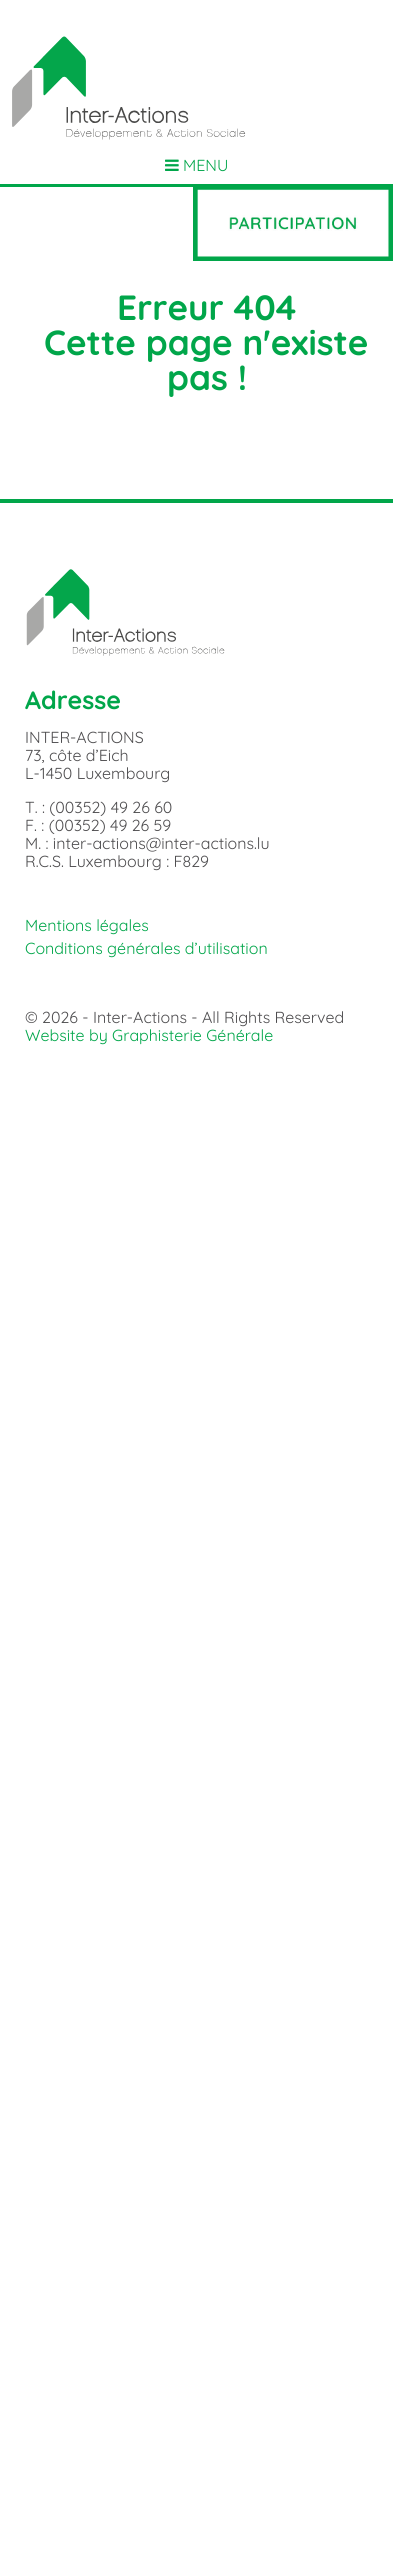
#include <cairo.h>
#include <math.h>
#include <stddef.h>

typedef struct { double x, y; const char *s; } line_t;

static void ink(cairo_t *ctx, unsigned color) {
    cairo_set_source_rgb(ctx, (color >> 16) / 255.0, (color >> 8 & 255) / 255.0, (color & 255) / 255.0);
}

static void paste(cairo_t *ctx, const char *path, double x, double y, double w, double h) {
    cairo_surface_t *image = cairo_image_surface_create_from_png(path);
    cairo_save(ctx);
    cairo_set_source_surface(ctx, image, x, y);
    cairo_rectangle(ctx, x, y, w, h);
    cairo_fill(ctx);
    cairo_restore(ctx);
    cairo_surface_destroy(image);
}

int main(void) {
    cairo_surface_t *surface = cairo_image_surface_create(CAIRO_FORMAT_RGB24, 393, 2570);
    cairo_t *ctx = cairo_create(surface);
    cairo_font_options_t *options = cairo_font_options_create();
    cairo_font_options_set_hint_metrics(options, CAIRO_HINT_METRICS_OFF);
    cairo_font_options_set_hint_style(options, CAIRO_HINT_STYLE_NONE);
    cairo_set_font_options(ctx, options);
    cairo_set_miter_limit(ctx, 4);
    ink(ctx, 0xFFFFFF);
    cairo_paint(ctx);
    ink(ctx, 0x00A64A);
    cairo_rectangle(ctx, 0, 184, 393, 3);
    cairo_fill(ctx);
    paste(ctx, "media/1.png", 12, 36, 234, 104);
    paste(ctx, "media/2.png", 165, 159, 14, 12);
    cairo_select_font_face(ctx, "Quicksand", CAIRO_FONT_SLANT_NORMAL, CAIRO_FONT_WEIGHT_NORMAL);
    cairo_set_font_size(ctx, 16);
    ink(ctx, 0x01A64A);
    cairo_move_to(ctx, 183, 171);
    cairo_show_text(ctx, "MENU");
    paste(ctx, "media/3.png", 193, 187, 200, 74);
    cairo_select_font_face(ctx, "Quicksand", CAIRO_FONT_SLANT_NORMAL, CAIRO_FONT_WEIGHT_BOLD);
    cairo_set_font_size(ctx, 35);
    {
        static const line_t items[] = {
            {117, 320, "Erreur 404"},
            {44, 355, "Cette page n'existe"},
            {167, 390, "pas !"},
        };
        for (size_t i = 0; i < sizeof items / sizeof *items; i++) {
            cairo_move_to(ctx, items[i].x, items[i].y);
            cairo_show_text(ctx, items[i].s);
        }
    }
    cairo_rectangle(ctx, 0, 499, 393, 4);
    cairo_fill(ctx);
    paste(ctx, "media/4.png", 26, 569, 199, 87);
    cairo_set_font_size(ctx, 25);
    cairo_move_to(ctx, 25, 709);
    cairo_show_text(ctx, "Adresse");
    cairo_select_font_face(ctx, "Quicksand", CAIRO_FONT_SLANT_NORMAL, CAIRO_FONT_WEIGHT_NORMAL);
    cairo_set_font_size(ctx, 16);
    ink(ctx, 0x4E4D4F);
    {
        static const line_t items[] = {
            {25, 743, "INTER-ACTIONS"},
            {25, 761, "73, côte d’Eich"},
            {25, 779, "L-1450 Luxembourg"},
            {25, 813, "T. : (00352) 49 26 60"},
            {25, 831, "F. : (00352) 49 26 59"},
            {25, 849, "M. : inter-actions@inter-actions.lu"},
            {25, 867, "R.C.S. Luxembourg : F829"},
        };
        for (size_t i = 0; i < sizeof items / sizeof *items; i++) {
            cairo_move_to(ctx, items[i].x, items[i].y);
            cairo_show_text(ctx, items[i].s);
        }
    }
    ink(ctx, 0x01A64A);
    cairo_move_to(ctx, 25, 931);
    cairo_show_text(ctx, "Mentions légales");
    cairo_move_to(ctx, 25, 954);
    cairo_show_text(ctx, "Conditions générales d’utilisation");
    ink(ctx, 0x4E4D4F);
    cairo_move_to(ctx, 25, 1023);
    cairo_show_text(ctx, "© 2026 - Inter-Actions - All Rights Reserved");
    ink(ctx, 0x01A64A);
    cairo_move_to(ctx, 25, 1041);
    cairo_show_text(ctx, "Website by Graphisterie Générale");
    cairo_surface_write_to_png(surface, "image.png");
    cairo_font_options_destroy(options);
    cairo_destroy(ctx);
    cairo_surface_destroy(surface);
    return 0;
}
